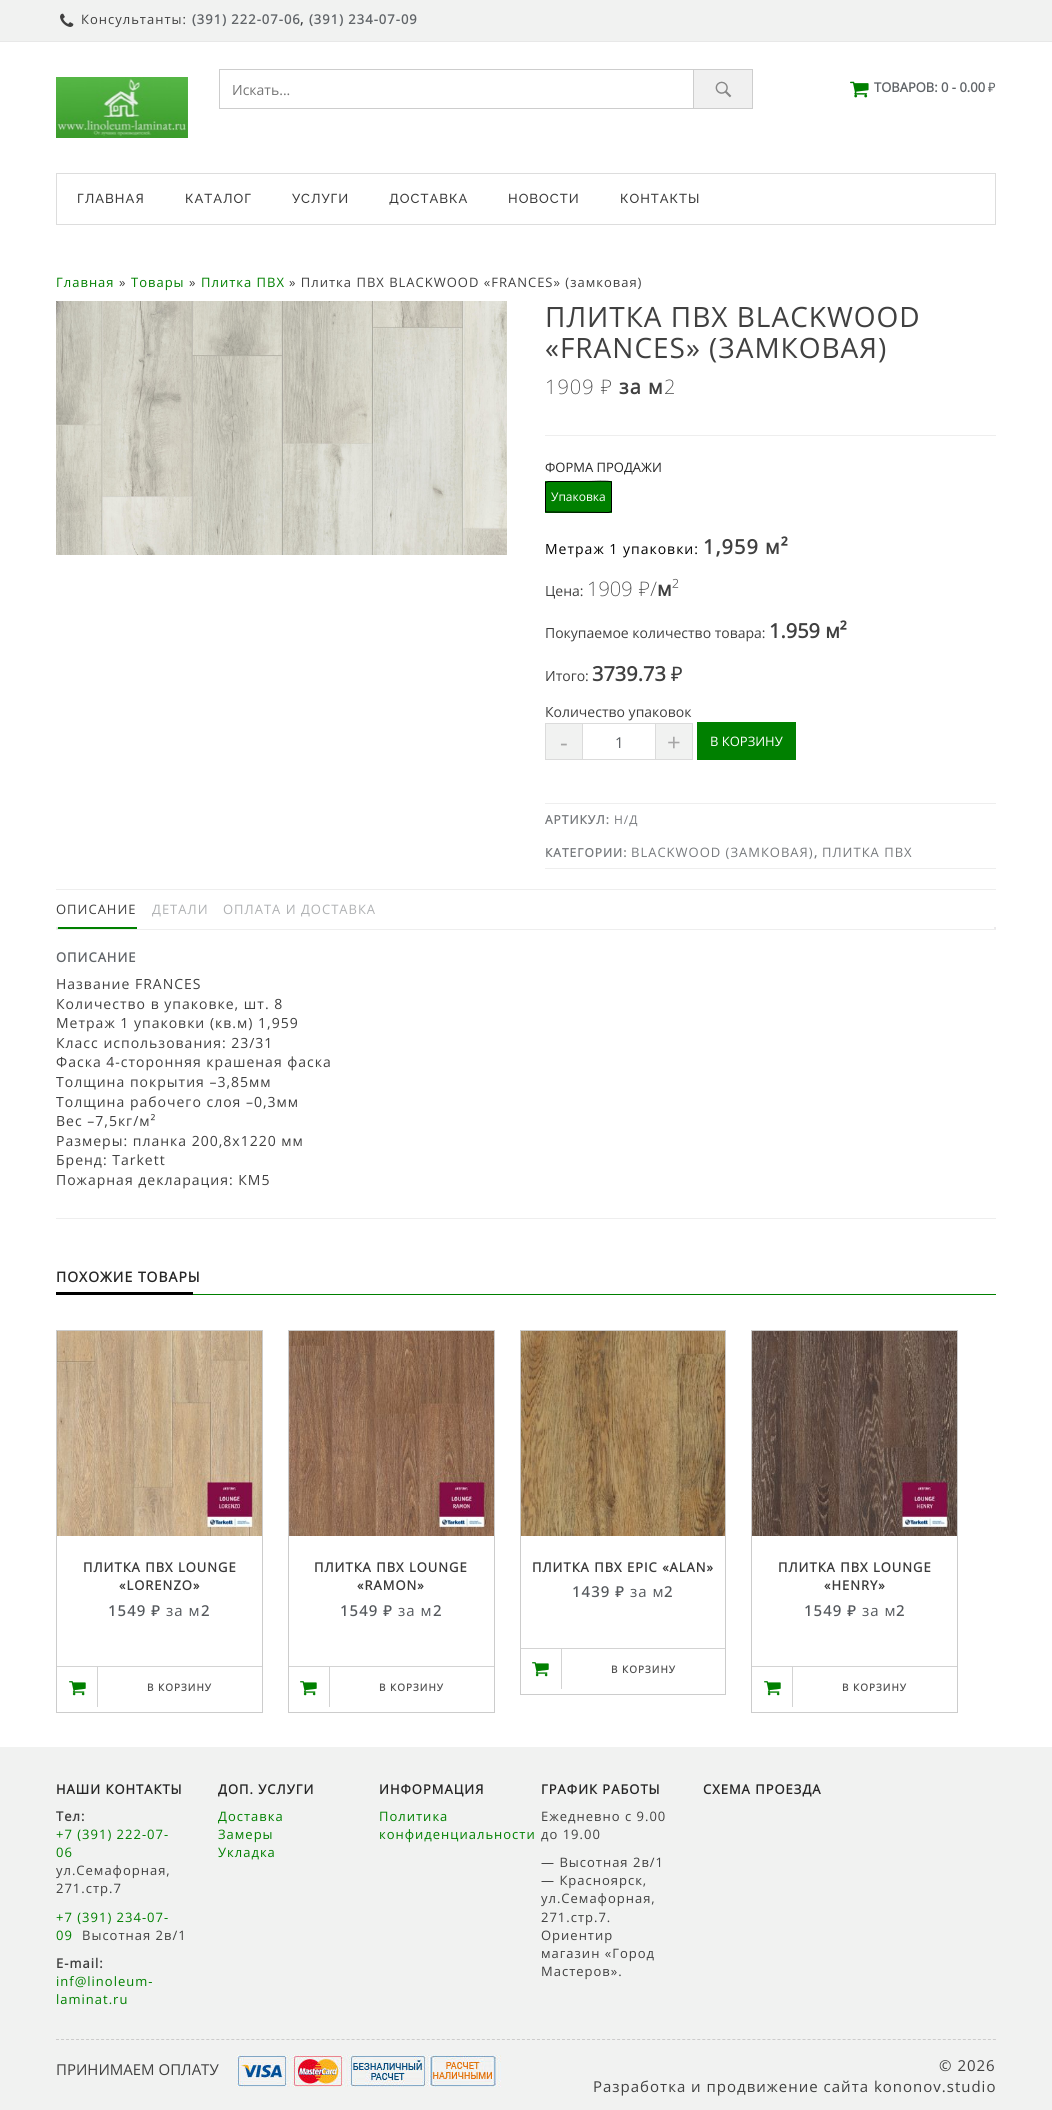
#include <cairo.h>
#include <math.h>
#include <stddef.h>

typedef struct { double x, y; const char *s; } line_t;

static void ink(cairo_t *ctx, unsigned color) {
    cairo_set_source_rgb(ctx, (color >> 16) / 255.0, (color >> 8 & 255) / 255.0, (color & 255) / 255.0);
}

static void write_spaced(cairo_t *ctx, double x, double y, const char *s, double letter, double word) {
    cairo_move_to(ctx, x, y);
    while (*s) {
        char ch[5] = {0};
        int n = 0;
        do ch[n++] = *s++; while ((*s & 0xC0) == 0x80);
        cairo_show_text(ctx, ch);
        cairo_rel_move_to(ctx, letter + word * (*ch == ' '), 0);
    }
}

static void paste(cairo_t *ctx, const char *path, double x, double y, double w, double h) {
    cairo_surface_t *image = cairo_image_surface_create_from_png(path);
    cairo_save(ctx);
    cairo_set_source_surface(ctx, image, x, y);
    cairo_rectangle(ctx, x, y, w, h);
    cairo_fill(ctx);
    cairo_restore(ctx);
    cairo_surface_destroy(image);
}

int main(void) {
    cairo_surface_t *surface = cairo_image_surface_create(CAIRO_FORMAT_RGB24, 1052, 2110);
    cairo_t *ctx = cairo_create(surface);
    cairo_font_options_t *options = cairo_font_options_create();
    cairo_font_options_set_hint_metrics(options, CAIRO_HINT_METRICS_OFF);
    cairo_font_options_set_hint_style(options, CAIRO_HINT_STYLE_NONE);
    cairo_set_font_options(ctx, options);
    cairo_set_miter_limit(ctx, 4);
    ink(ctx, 0xFFFFFF);
    cairo_paint(ctx);
    ink(ctx, 0xF1F2F1);
    cairo_rectangle(ctx, 0, 0, 1052, 41);
    cairo_fill(ctx);
    ink(ctx, 0xE8E8E8);
    cairo_rectangle(ctx, 0, 41, 1052, 1);
    cairo_fill(ctx);
    paste(ctx, "media/1.png", 60, 13, 14, 14);
    cairo_select_font_face(ctx, "Open Sans", CAIRO_FONT_SLANT_NORMAL, CAIRO_FONT_WEIGHT_NORMAL);
    cairo_set_font_size(ctx, 13);
    ink(ctx, 0x404040);
    write_spaced(ctx, 81, 24, "Консультанты:", 1, 0);
    cairo_select_font_face(ctx, "Open Sans", CAIRO_FONT_SLANT_NORMAL, CAIRO_FONT_WEIGHT_BOLD);
    ink(ctx, 0x606468);
    write_spaced(ctx, 192, 24, "(391) 222-07-06", 1, 0);
    ink(ctx, 0x404040);
    write_spaced(ctx, 300, 24, ",", 1, 0);
    ink(ctx, 0x606468);
    write_spaced(ctx, 309, 24, "(391) 234-07-09", 1, 0);
    paste(ctx, "media/2.png", 56, 77, 132, 61);
    cairo_rectangle(ctx, 219.5, 69.5, 475, 39);
    ink(ctx, 0xCDCDCD);
    cairo_set_line_width(ctx, 1);
    cairo_stroke(ctx);
    cairo_select_font_face(ctx, "Open Sans", CAIRO_FONT_SLANT_NORMAL, CAIRO_FONT_WEIGHT_NORMAL);
    cairo_set_font_size(ctx, 14);
    ink(ctx, 0x757575);
    cairo_move_to(ctx, 232, 95);
    cairo_show_text(ctx, "Искать...");
    ink(ctx, 0xF0F0F0);
    cairo_rectangle(ctx, 694, 70, 58, 38);
    cairo_fill(ctx);
    paste(ctx, "media/3.png", 715, 81, 17, 17);
    cairo_rectangle(ctx, 693.5, 69.5, 59, 39);
    ink(ctx, 0xCDCDCD);
    cairo_stroke(ctx);
    paste(ctx, "media/4.png", 850, 81, 19, 17);
    cairo_select_font_face(ctx, "Open Sans", CAIRO_FONT_SLANT_NORMAL, CAIRO_FONT_WEIGHT_BOLD);
    cairo_set_font_size(ctx, 13);
    ink(ctx, 0x606468);
    cairo_move_to(ctx, 874, 92);
    cairo_show_text(ctx, "ТОВАРОВ: 0 - 0.00");
    cairo_select_font_face(ctx, "Noto Sans", CAIRO_FONT_SLANT_NORMAL, CAIRO_FONT_WEIGHT_NORMAL);
    cairo_move_to(ctx, 988, 92);
    cairo_show_text(ctx, "₽");
    cairo_rectangle(ctx, 56.5, 173.5, 939, 51);
    ink(ctx, 0xDDDDDD);
    cairo_stroke(ctx);
    cairo_select_font_face(ctx, "Raleway Medium", CAIRO_FONT_SLANT_NORMAL, CAIRO_FONT_WEIGHT_NORMAL);
    ink(ctx, 0x3A3A3A);
    {
        static const line_t items[] = {
            {77, 203, "ГЛАВНАЯ"},
            {185, 203, "КАТАЛОГ"},
            {292, 203, "УСЛУГИ"},
            {389, 203, "ДОСТАВКА"},
            {508, 203, "НОВОСТИ"},
            {620, 203, "КОНТАКТЫ"},
        };
        for (size_t i = 0; i < sizeof items / sizeof *items; i++) {
            write_spaced(ctx, items[i].x, items[i].y, items[i].s, 1, 0);
        }
    }
    cairo_select_font_face(ctx, "Open Sans", CAIRO_FONT_SLANT_NORMAL, CAIRO_FONT_WEIGHT_NORMAL);
    ink(ctx, 0x008000);
    write_spaced(ctx, 56, 287, "Главная", 1, 0);
    ink(ctx, 0x404040);
    write_spaced(ctx, 119, 287, "»", 1, 0);
    ink(ctx, 0x008000);
    write_spaced(ctx, 131, 287, "Товары", 1, 0);
    ink(ctx, 0x404040);
    write_spaced(ctx, 189, 287, "»", 1, 0);
    ink(ctx, 0x008000);
    write_spaced(ctx, 201, 287, "Плитка ПВХ", 1, 0);
    ink(ctx, 0x404040);
    write_spaced(ctx, 289, 287, "» Плитка ПВХ BLACKWOOD «FRANCES» (замковая)", 1, 0);
    paste(ctx, "media/5.png", 56, 301, 451, 254);
    cairo_set_font_size(ctx, 28);
    write_spaced(ctx, 545, 327, "ПЛИТКА ПВХ BLACKWOOD", 1, 0);
    write_spaced(ctx, 545, 358, "«FRANCES» (ЗАМКОВАЯ)", 1, 0);
    cairo_select_font_face(ctx, "Noto Sans ExtraLight", CAIRO_FONT_SLANT_NORMAL, CAIRO_FONT_WEIGHT_NORMAL);
    cairo_set_font_size(ctx, 20);
    write_spaced(ctx, 545, 394, "1909 ₽", 1, 0);
    cairo_select_font_face(ctx, "Open Sans", CAIRO_FONT_SLANT_NORMAL, CAIRO_FONT_WEIGHT_BOLD);
    write_spaced(ctx, 619, 394, "за м", 1, 0);
    cairo_select_font_face(ctx, "Noto Sans ExtraLight", CAIRO_FONT_SLANT_NORMAL, CAIRO_FONT_WEIGHT_NORMAL);
    write_spaced(ctx, 664, 394, "2", 1, 0);
    ink(ctx, 0xEEEEEE);
    cairo_rectangle(ctx, 545, 435, 451, 1);
    cairo_fill(ctx);
    cairo_select_font_face(ctx, "Open Sans", CAIRO_FONT_SLANT_NORMAL, CAIRO_FONT_WEIGHT_NORMAL);
    cairo_set_font_size(ctx, 13);
    ink(ctx, 0x262626);
    cairo_move_to(ctx, 545, 472);
    cairo_show_text(ctx, "ФОРМА ПРОДАЖИ");
    ink(ctx, 0x008000);
    cairo_rectangle(ctx, 545, 481, 67, 32);
    cairo_fill(ctx);
    cairo_new_path(ctx);
    cairo_move_to(ctx, 548.5, 481.5);
    cairo_line_to(ctx, 588.5, 481.5);
    cairo_curve_to(ctx, 591, 481.5, 609.5, 480.5, 611.5, 482);
    cairo_line_to(ctx, 611.5, 511.5);
    cairo_line_to(ctx, 608.5, 512.5);
    cairo_line_to(ctx, 546.5, 512);
    cairo_line_to(ctx, 545.5, 511.5);
    cairo_line_to(ctx, 545.5, 482.5);
    cairo_close_path(ctx);
    ink(ctx, 0x000000);
    cairo_stroke(ctx);
    cairo_set_font_size(ctx, 12);
    ink(ctx, 0xFFFFFF);
    cairo_move_to(ctx, 551, 501);
    cairo_show_text(ctx, "Упаковка");
    cairo_set_font_size(ctx, 14);
    ink(ctx, 0x000000);
    write_spaced(ctx, 545, 554, "Метраж 1 упаковки:", 1, 0);
    cairo_select_font_face(ctx, "Open Sans", CAIRO_FONT_SLANT_NORMAL, CAIRO_FONT_WEIGHT_BOLD);
    cairo_set_font_size(ctx, 20);
    ink(ctx, 0x404040);
    write_spaced(ctx, 703, 554, "1,959 м²", 1, 0);
    cairo_select_font_face(ctx, "Open Sans", CAIRO_FONT_SLANT_NORMAL, CAIRO_FONT_WEIGHT_NORMAL);
    cairo_set_font_size(ctx, 14);
    cairo_move_to(ctx, 545, 596);
    cairo_show_text(ctx, "Цена:");
    cairo_select_font_face(ctx, "Noto Sans ExtraLight", CAIRO_FONT_SLANT_NORMAL, CAIRO_FONT_WEIGHT_NORMAL);
    cairo_set_font_size(ctx, 20);
    write_spaced(ctx, 587, 596, "1909 ₽/", 0, 1);
    cairo_select_font_face(ctx, "Open Sans", CAIRO_FONT_SLANT_NORMAL, CAIRO_FONT_WEIGHT_BOLD);
    cairo_move_to(ctx, 657, 596);
    cairo_show_text(ctx, "м");
    cairo_select_font_face(ctx, "Noto Sans ExtraLight", CAIRO_FONT_SLANT_NORMAL, CAIRO_FONT_WEIGHT_NORMAL);
    cairo_move_to(ctx, 672, 596);
    cairo_show_text(ctx, "²");
    cairo_select_font_face(ctx, "Open Sans", CAIRO_FONT_SLANT_NORMAL, CAIRO_FONT_WEIGHT_NORMAL);
    cairo_set_font_size(ctx, 14);
    cairo_move_to(ctx, 545, 638);
    cairo_show_text(ctx, "Покупаемое количество товара:");
    cairo_select_font_face(ctx, "Open Sans", CAIRO_FONT_SLANT_NORMAL, CAIRO_FONT_WEIGHT_BOLD);
    cairo_set_font_size(ctx, 20);
    cairo_move_to(ctx, 769, 638);
    cairo_show_text(ctx, "1.959 м²");
    cairo_select_font_face(ctx, "Open Sans", CAIRO_FONT_SLANT_NORMAL, CAIRO_FONT_WEIGHT_NORMAL);
    cairo_set_font_size(ctx, 14);
    cairo_move_to(ctx, 545, 681);
    cairo_show_text(ctx, "Итого:");
    cairo_select_font_face(ctx, "Open Sans", CAIRO_FONT_SLANT_NORMAL, CAIRO_FONT_WEIGHT_BOLD);
    cairo_set_font_size(ctx, 20);
    cairo_move_to(ctx, 592, 681);
    cairo_show_text(ctx, "3739.73");
    cairo_select_font_face(ctx, "Noto Sans", CAIRO_FONT_SLANT_NORMAL, CAIRO_FONT_WEIGHT_NORMAL);
    cairo_move_to(ctx, 671, 681);
    cairo_show_text(ctx, "₽");
    cairo_select_font_face(ctx, "Open Sans", CAIRO_FONT_SLANT_NORMAL, CAIRO_FONT_WEIGHT_NORMAL);
    cairo_set_font_size(ctx, 14);
    cairo_move_to(ctx, 545, 717);
    cairo_show_text(ctx, "Количество упаковок");
    cairo_rectangle(ctx, 581.5, 723.5, 74, 36);
    ink(ctx, 0xDBDBDB);
    cairo_stroke(ctx);
    ink(ctx, 0xF1F2F1);
    cairo_rectangle(ctx, 545.5, 723.5, 37, 36);
    cairo_fill_preserve(ctx);
    ink(ctx, 0xDBDBDB);
    cairo_stroke(ctx);
    cairo_set_font_size(ctx, 24);
    ink(ctx, 0xA6A6A6);
    cairo_move_to(ctx, 560, 751);
    cairo_show_text(ctx, "-");
    cairo_set_font_size(ctx, 15);
    ink(ctx, 0x55595D);
    cairo_move_to(ctx, 615, 748);
    cairo_show_text(ctx, "1");
    ink(ctx, 0xF1F2F1);
    cairo_rectangle(ctx, 655.5, 723.5, 37, 36);
    cairo_fill_preserve(ctx);
    ink(ctx, 0xDBDBDB);
    cairo_stroke(ctx);
    cairo_set_font_size(ctx, 24);
    ink(ctx, 0xA6A6A6);
    cairo_move_to(ctx, 667, 751);
    cairo_show_text(ctx, "+");
    ink(ctx, 0x008000);
    cairo_rectangle(ctx, 697, 722, 99, 38);
    cairo_fill(ctx);
    cairo_set_font_size(ctx, 13);
    ink(ctx, 0xFFFFFF);
    cairo_move_to(ctx, 710, 746);
    cairo_show_text(ctx, "В КОРЗИНУ");
    ink(ctx, 0xEEEEEE);
    cairo_rectangle(ctx, 545, 803, 451, 1);
    cairo_fill(ctx);
    cairo_select_font_face(ctx, "Open Sans", CAIRO_FONT_SLANT_NORMAL, CAIRO_FONT_WEIGHT_BOLD);
    cairo_set_font_size(ctx, 12);
    ink(ctx, 0x777A7D);
    write_spaced(ctx, 545, 824, "АРТИКУЛ:", 1, 0);
    cairo_select_font_face(ctx, "Open Sans", CAIRO_FONT_SLANT_NORMAL, CAIRO_FONT_WEIGHT_NORMAL);
    write_spaced(ctx, 614, 824, "Н/Д", 1, 0);
    ink(ctx, 0xEEEEEE);
    cairo_rectangle(ctx, 545, 868, 451, 1);
    cairo_fill(ctx);
    cairo_select_font_face(ctx, "Open Sans", CAIRO_FONT_SLANT_NORMAL, CAIRO_FONT_WEIGHT_BOLD);
    ink(ctx, 0x777A7D);
    write_spaced(ctx, 545, 857, "КАТЕГОРИИ:", 1, 0);
    cairo_select_font_face(ctx, "Open Sans", CAIRO_FONT_SLANT_NORMAL, CAIRO_FONT_WEIGHT_NORMAL);
    cairo_set_font_size(ctx, 13);
    write_spaced(ctx, 631, 857, "BLACKWOOD (ЗАМКОВАЯ)", 1, 0);
    cairo_select_font_face(ctx, "Open Sans", CAIRO_FONT_SLANT_NORMAL, CAIRO_FONT_WEIGHT_BOLD);
    cairo_set_font_size(ctx, 12);
    write_spaced(ctx, 814, 857, ",", 1, 0);
    cairo_select_font_face(ctx, "Open Sans", CAIRO_FONT_SLANT_NORMAL, CAIRO_FONT_WEIGHT_NORMAL);
    cairo_set_font_size(ctx, 13);
    write_spaced(ctx, 822, 857, "ПЛИТКА ПВХ", 1, 0);
    ink(ctx, 0xEEEEEE);
    cairo_rectangle(ctx, 56, 889, 940, 1);
    cairo_fill(ctx);
    cairo_rectangle(ctx, 56, 1218, 940, 1);
    cairo_fill(ctx);
    ink(ctx, 0x404040);
    write_spaced(ctx, 56, 914, "ОПИСАНИЕ", 1, 0);
    ink(ctx, 0x008000);
    cairo_rectangle(ctx, 56, 927, 81, 2);
    cairo_fill(ctx);
    ink(ctx, 0xAFB1B3);
    write_spaced(ctx, 152, 914, "ДЕТАЛИ", 1, 0);
    write_spaced(ctx, 223, 914, "ОПЛАТА И ДОСТАВКА", 1, 0);
    cairo_save(ctx);
    cairo_rectangle(ctx, 56, 890, 940, 39);
    cairo_clip(ctx);
    ink(ctx, 0xEBE9EB);
    cairo_new_path(ctx);
    cairo_move_to(ctx, 53, 930);
    cairo_line_to(ctx, 53, 932);
    cairo_curve_to(ctx, 56.5, 932, 58, 930.5, 58, 927);
    cairo_line_to(ctx, 56, 927);
    cairo_curve_to(ctx, 55.5, 928.5, 54.5, 929.5, 53, 930);
    cairo_close_path(ctx);
    cairo_fill(ctx);
    cairo_new_path(ctx);
    cairo_move_to(ctx, 994, 927);
    cairo_curve_to(ctx, 994, 930.5, 995.5, 932, 999, 932);
    cairo_line_to(ctx, 999, 930);
    cairo_curve_to(ctx, 997.5, 929.5, 996.5, 928.5, 996, 927);
    cairo_close_path(ctx);
    cairo_fill(ctx);
    cairo_restore(ctx);
    ink(ctx, 0xEEEEEE);
    cairo_rectangle(ctx, 56, 929, 940, 1);
    cairo_fill(ctx);
    cairo_select_font_face(ctx, "Open Sans", CAIRO_FONT_SLANT_NORMAL, CAIRO_FONT_WEIGHT_BOLD);
    ink(ctx, 0x606468);
    write_spaced(ctx, 56, 962, "ОПИСАНИЕ", 1, 0);
    cairo_select_font_face(ctx, "Open Sans", CAIRO_FONT_SLANT_NORMAL, CAIRO_FONT_WEIGHT_NORMAL);
    cairo_set_font_size(ctx, 14);
    ink(ctx, 0x404040);
    {
        static const line_t items[] = {
            {56, 989, "Название FRANCES"},
            {56, 1009, "Количество в упаковке, шт. 8"},
            {56, 1028, "Метраж 1 упаковки (кв.м) 1,959"},
            {56, 1048, "Класс использования: 23/31"},
            {56, 1067, "Фаска 4-сторонняя крашеная фаска"},
            {56, 1087, "Толщина покрытия –3,85мм"},
            {56, 1107, "Толщина рабочего слоя –0,3мм"},
            {56, 1126, "Вес –7,5кг/м²"},
            {56, 1146, "Размеры: планка 200,8х1220 мм"},
            {56, 1165, "Бренд: Tarkett"},
            {56, 1185, "Пожарная декларация: КМ5"},
        };
        for (size_t i = 0; i < sizeof items / sizeof *items; i++) {
            write_spaced(ctx, items[i].x, items[i].y, items[i].s, 1, 0);
        }
    }
    ink(ctx, 0x008000);
    cairo_rectangle(ctx, 193, 1294, 803, 1);
    cairo_fill(ctx);
    cairo_select_font_face(ctx, "Open Sans", CAIRO_FONT_SLANT_NORMAL, CAIRO_FONT_WEIGHT_BOLD);
    ink(ctx, 0x262626);
    write_spaced(ctx, 56, 1282, "ПОХОЖИЕ ТОВАРЫ", 1, 0);
    ink(ctx, 0x000000);
    cairo_rectangle(ctx, 56, 1292, 137, 3);
    cairo_fill(ctx);
    cairo_rectangle(ctx, 56.5, 1330.5, 206, 382);
    ink(ctx, 0xCCCCCC);
    cairo_stroke(ctx);
    ink(ctx, 0xD3D3D3);
    cairo_rectangle(ctx, 57, 1666, 205, 1);
    cairo_fill(ctx);
    paste(ctx, "media/6.png", 57, 1331, 205, 205);
    cairo_set_font_size(ctx, 13);
    ink(ctx, 0x3A3A3A);
    write_spaced(ctx, 83, 1572, "ПЛИТКА ПВХ LOUNGE", 1, 0);
    write_spaced(ctx, 119, 1590, "«LORENZO»", 1, 0);
    cairo_select_font_face(ctx, "Noto Sans Medium", CAIRO_FONT_SLANT_NORMAL, CAIRO_FONT_WEIGHT_NORMAL);
    cairo_set_font_size(ctx, 15);
    ink(ctx, 0x55595D);
    write_spaced(ctx, 108, 1616, "1549 ₽", 1, 0);
    cairo_select_font_face(ctx, "Open Sans", CAIRO_FONT_SLANT_NORMAL, CAIRO_FONT_WEIGHT_NORMAL);
    write_spaced(ctx, 166, 1616, "за м", 1, 0);
    cairo_select_font_face(ctx, "Noto Sans Medium", CAIRO_FONT_SLANT_NORMAL, CAIRO_FONT_WEIGHT_NORMAL);
    write_spaced(ctx, 201, 1616, "2", 1, 0);
    paste(ctx, "media/7.png", 69, 1681, 17, 15);
    ink(ctx, 0xD3D3D3);
    cairo_rectangle(ctx, 97, 1667, 1, 40);
    cairo_fill(ctx);
    cairo_select_font_face(ctx, "Open Sans", CAIRO_FONT_SLANT_NORMAL, CAIRO_FONT_WEIGHT_BOLD);
    cairo_set_font_size(ctx, 10);
    ink(ctx, 0x515151);
    write_spaced(ctx, 147, 1691, "В КОРЗИНУ", 1, 0);
    cairo_rectangle(ctx, 288.5, 1330.5, 206, 382);
    ink(ctx, 0xCCCCCC);
    cairo_stroke(ctx);
    ink(ctx, 0xD3D3D3);
    cairo_rectangle(ctx, 289, 1666, 205, 1);
    cairo_fill(ctx);
    paste(ctx, "media/8.png", 289, 1331, 205, 205);
    cairo_set_font_size(ctx, 13);
    ink(ctx, 0x3A3A3A);
    write_spaced(ctx, 314, 1572, "ПЛИТКА ПВХ LOUNGE", 1, 0);
    write_spaced(ctx, 357, 1590, "«RAMON»", 1, 0);
    cairo_select_font_face(ctx, "Noto Sans Medium", CAIRO_FONT_SLANT_NORMAL, CAIRO_FONT_WEIGHT_NORMAL);
    cairo_set_font_size(ctx, 15);
    ink(ctx, 0x55595D);
    write_spaced(ctx, 340, 1616, "1549 ₽", 1, 0);
    cairo_select_font_face(ctx, "Open Sans", CAIRO_FONT_SLANT_NORMAL, CAIRO_FONT_WEIGHT_NORMAL);
    write_spaced(ctx, 398, 1616, "за м", 1, 0);
    cairo_select_font_face(ctx, "Noto Sans Medium", CAIRO_FONT_SLANT_NORMAL, CAIRO_FONT_WEIGHT_NORMAL);
    write_spaced(ctx, 433, 1616, "2", 1, 0);
    paste(ctx, "media/7.png", 300, 1681, 17, 15);
    ink(ctx, 0xD3D3D3);
    cairo_rectangle(ctx, 329, 1667, 1, 40);
    cairo_fill(ctx);
    cairo_select_font_face(ctx, "Open Sans", CAIRO_FONT_SLANT_NORMAL, CAIRO_FONT_WEIGHT_BOLD);
    cairo_set_font_size(ctx, 10);
    ink(ctx, 0x515151);
    write_spaced(ctx, 379, 1691, "В КОРЗИНУ", 1, 0);
    cairo_rectangle(ctx, 520.5, 1330.5, 205, 364);
    ink(ctx, 0xCCCCCC);
    cairo_stroke(ctx);
    ink(ctx, 0xD3D3D3);
    cairo_rectangle(ctx, 521, 1648, 204, 1);
    cairo_fill(ctx);
    paste(ctx, "media/9.png", 521, 1331, 204, 205);
    cairo_set_font_size(ctx, 13);
    ink(ctx, 0x3A3A3A);
    write_spaced(ctx, 532, 1572, "ПЛИТКА ПВХ EPIC «ALAN»", 1, 0);
    cairo_select_font_face(ctx, "Noto Sans Medium", CAIRO_FONT_SLANT_NORMAL, CAIRO_FONT_WEIGHT_NORMAL);
    cairo_set_font_size(ctx, 15);
    ink(ctx, 0x55595D);
    write_spaced(ctx, 572, 1597, "1439 ₽", 1, 0);
    cairo_select_font_face(ctx, "Open Sans", CAIRO_FONT_SLANT_NORMAL, CAIRO_FONT_WEIGHT_NORMAL);
    write_spaced(ctx, 630, 1597, "за м", 1, 0);
    cairo_select_font_face(ctx, "Noto Sans Medium", CAIRO_FONT_SLANT_NORMAL, CAIRO_FONT_WEIGHT_NORMAL);
    write_spaced(ctx, 664, 1597, "2", 1, 0);
    paste(ctx, "media/7.png", 532, 1662, 17, 15);
    ink(ctx, 0xD3D3D3);
    cairo_rectangle(ctx, 561, 1649, 1, 40);
    cairo_fill(ctx);
    cairo_select_font_face(ctx, "Open Sans", CAIRO_FONT_SLANT_NORMAL, CAIRO_FONT_WEIGHT_BOLD);
    cairo_set_font_size(ctx, 10);
    ink(ctx, 0x515151);
    write_spaced(ctx, 611, 1673, "В КОРЗИНУ", 1, 0);
    cairo_rectangle(ctx, 751.5, 1330.5, 206, 382);
    ink(ctx, 0xCCCCCC);
    cairo_stroke(ctx);
    ink(ctx, 0xD3D3D3);
    cairo_rectangle(ctx, 752, 1666, 205, 1);
    cairo_fill(ctx);
    paste(ctx, "media/10.png", 752, 1331, 205, 205);
    cairo_set_font_size(ctx, 13);
    ink(ctx, 0x3A3A3A);
    write_spaced(ctx, 778, 1572, "ПЛИТКА ПВХ LOUNGE", 1, 0);
    write_spaced(ctx, 824, 1590, "«HENRY»", 1, 0);
    cairo_select_font_face(ctx, "Noto Sans Medium", CAIRO_FONT_SLANT_NORMAL, CAIRO_FONT_WEIGHT_NORMAL);
    cairo_set_font_size(ctx, 15);
    ink(ctx, 0x55595D);
    write_spaced(ctx, 804, 1616, "1549 ₽", 1, 0);
    cairo_select_font_face(ctx, "Open Sans", CAIRO_FONT_SLANT_NORMAL, CAIRO_FONT_WEIGHT_NORMAL);
    write_spaced(ctx, 862, 1616, "за м", 1, 0);
    cairo_select_font_face(ctx, "Noto Sans Medium", CAIRO_FONT_SLANT_NORMAL, CAIRO_FONT_WEIGHT_NORMAL);
    write_spaced(ctx, 896, 1616, "2", 1, 0);
    paste(ctx, "media/7.png", 764, 1681, 17, 15);
    ink(ctx, 0xD3D3D3);
    cairo_rectangle(ctx, 792, 1667, 1, 40);
    cairo_fill(ctx);
    cairo_select_font_face(ctx, "Open Sans", CAIRO_FONT_SLANT_NORMAL, CAIRO_FONT_WEIGHT_BOLD);
    cairo_set_font_size(ctx, 10);
    ink(ctx, 0x515151);
    write_spaced(ctx, 842, 1691, "В КОРЗИНУ", 1, 0);
    ink(ctx, 0xF1F2F1);
    cairo_rectangle(ctx, 0, 1747, 1052, 363);
    cairo_fill(ctx);
    cairo_set_font_size(ctx, 13);
    ink(ctx, 0x262626);
    write_spaced(ctx, 56, 1794, "НАШИ КОНТАКТЫ", 1, 0);
    ink(ctx, 0x404040);
    write_spaced(ctx, 56, 1821, "Тел:", 1, 0);
    cairo_select_font_face(ctx, "Open Sans", CAIRO_FONT_SLANT_NORMAL, CAIRO_FONT_WEIGHT_NORMAL);
    ink(ctx, 0x008000);
    write_spaced(ctx, 56, 1839, "+7 (391) 222-07-", 1, 0);
    write_spaced(ctx, 56, 1857, "06", 1, 0);
    ink(ctx, 0x404040);
    write_spaced(ctx, 56, 1875, "ул.Семафорная,", 1, 0);
    write_spaced(ctx, 56, 1893, "271.стр.7", 1, 0);
    ink(ctx, 0x008000);
    write_spaced(ctx, 56, 1922, "+7 (391) 234-07-", 1, 0);
    write_spaced(ctx, 56, 1940, "09", 1, 0);
    ink(ctx, 0x404040);
    write_spaced(ctx, 82, 1940, "Высотная 2в/1", 1, 0);
    cairo_select_font_face(ctx, "Open Sans", CAIRO_FONT_SLANT_NORMAL, CAIRO_FONT_WEIGHT_BOLD);
    write_spaced(ctx, 56, 1968, "E-mail:", 1, 0);
    cairo_select_font_face(ctx, "Open Sans", CAIRO_FONT_SLANT_NORMAL, CAIRO_FONT_WEIGHT_NORMAL);
    ink(ctx, 0x008000);
    write_spaced(ctx, 56, 1986, "inf@linoleum-", 1, 0);
    write_spaced(ctx, 56, 2004, "laminat.ru", 1, 0);
    cairo_select_font_face(ctx, "Open Sans", CAIRO_FONT_SLANT_NORMAL, CAIRO_FONT_WEIGHT_BOLD);
    ink(ctx, 0x262626);
    write_spaced(ctx, 218, 1794, "ДОП. УСЛУГИ", 1, 0);
    cairo_select_font_face(ctx, "Open Sans", CAIRO_FONT_SLANT_NORMAL, CAIRO_FONT_WEIGHT_NORMAL);
    ink(ctx, 0x008000);
    {
        static const line_t items[] = {
            {218, 1821, "Доставка"},
            {218, 1839, "Замеры"},
            {218, 1857, "Укладка"},
        };
        for (size_t i = 0; i < sizeof items / sizeof *items; i++) {
            write_spaced(ctx, items[i].x, items[i].y, items[i].s, 1, 0);
        }
    }
    cairo_select_font_face(ctx, "Open Sans", CAIRO_FONT_SLANT_NORMAL, CAIRO_FONT_WEIGHT_BOLD);
    ink(ctx, 0x262626);
    write_spaced(ctx, 379, 1794, "ИНФОРМАЦИЯ", 1, 0);
    cairo_select_font_face(ctx, "Open Sans", CAIRO_FONT_SLANT_NORMAL, CAIRO_FONT_WEIGHT_NORMAL);
    ink(ctx, 0x008000);
    write_spaced(ctx, 379, 1821, "Политика", 1, 0);
    write_spaced(ctx, 379, 1839, "конфиденциальности", 1, 0);
    cairo_select_font_face(ctx, "Open Sans", CAIRO_FONT_SLANT_NORMAL, CAIRO_FONT_WEIGHT_BOLD);
    ink(ctx, 0x262626);
    write_spaced(ctx, 541, 1794, "ГРАФИК РАБОТЫ", 1, 0);
    cairo_select_font_face(ctx, "Open Sans", CAIRO_FONT_SLANT_NORMAL, CAIRO_FONT_WEIGHT_NORMAL);
    ink(ctx, 0x404040);
    {
        static const line_t items[] = {
            {541, 1821, "Ежедневно с 9.00"},
            {541, 1839, "до 19.00"},
            {541, 1867, "— Высотная 2в/1"},
            {541, 1885, "— Красноярск,"},
            {541, 1903, "ул.Семафорная,"},
            {541, 1922, "271.стр.7."},
            {541, 1940, "Ориентир"},
            {541, 1958, "магазин «Город"},
            {541, 1976, "Мастеров»."},
        };
        for (size_t i = 0; i < sizeof items / sizeof *items; i++) {
            write_spaced(ctx, items[i].x, items[i].y, items[i].s, 1, 0);
        }
    }
    cairo_select_font_face(ctx, "Open Sans", CAIRO_FONT_SLANT_NORMAL, CAIRO_FONT_WEIGHT_BOLD);
    ink(ctx, 0x262626);
    write_spaced(ctx, 703, 1794, "СХЕМА ПРОЕЗДА", 1, 0);
    cairo_new_path(ctx);
    cairo_move_to(ctx, 56, 2039.5);
    cairo_line_to(ctx, 996, 2039.5);
    ink(ctx, 0xCCCCCC);
    cairo_set_dash(ctx, (double[]){3, 2.01}, 2, 0);
    cairo_stroke(ctx);
    cairo_select_font_face(ctx, "Open Sans", CAIRO_FONT_SLANT_NORMAL, CAIRO_FONT_WEIGHT_NORMAL);
    cairo_set_font_size(ctx, 15);
    ink(ctx, 0x404040);
    cairo_move_to(ctx, 56, 2075);
    cairo_show_text(ctx, "ПРИНИМАЕМ ОПЛАТУ");
    paste(ctx, "media/11.png", 237, 2055, 264, 32);
    write_spaced(ctx, 939, 2071, "© 2026", 1, 0);
    write_spaced(ctx, 593, 2092, "Разработка и продвижение сайта kononov.studio", 1, 0);
    cairo_surface_write_to_png(surface, "image.png");
    cairo_font_options_destroy(options);
    cairo_destroy(ctx);
    cairo_surface_destroy(surface);
    return 0;
}
